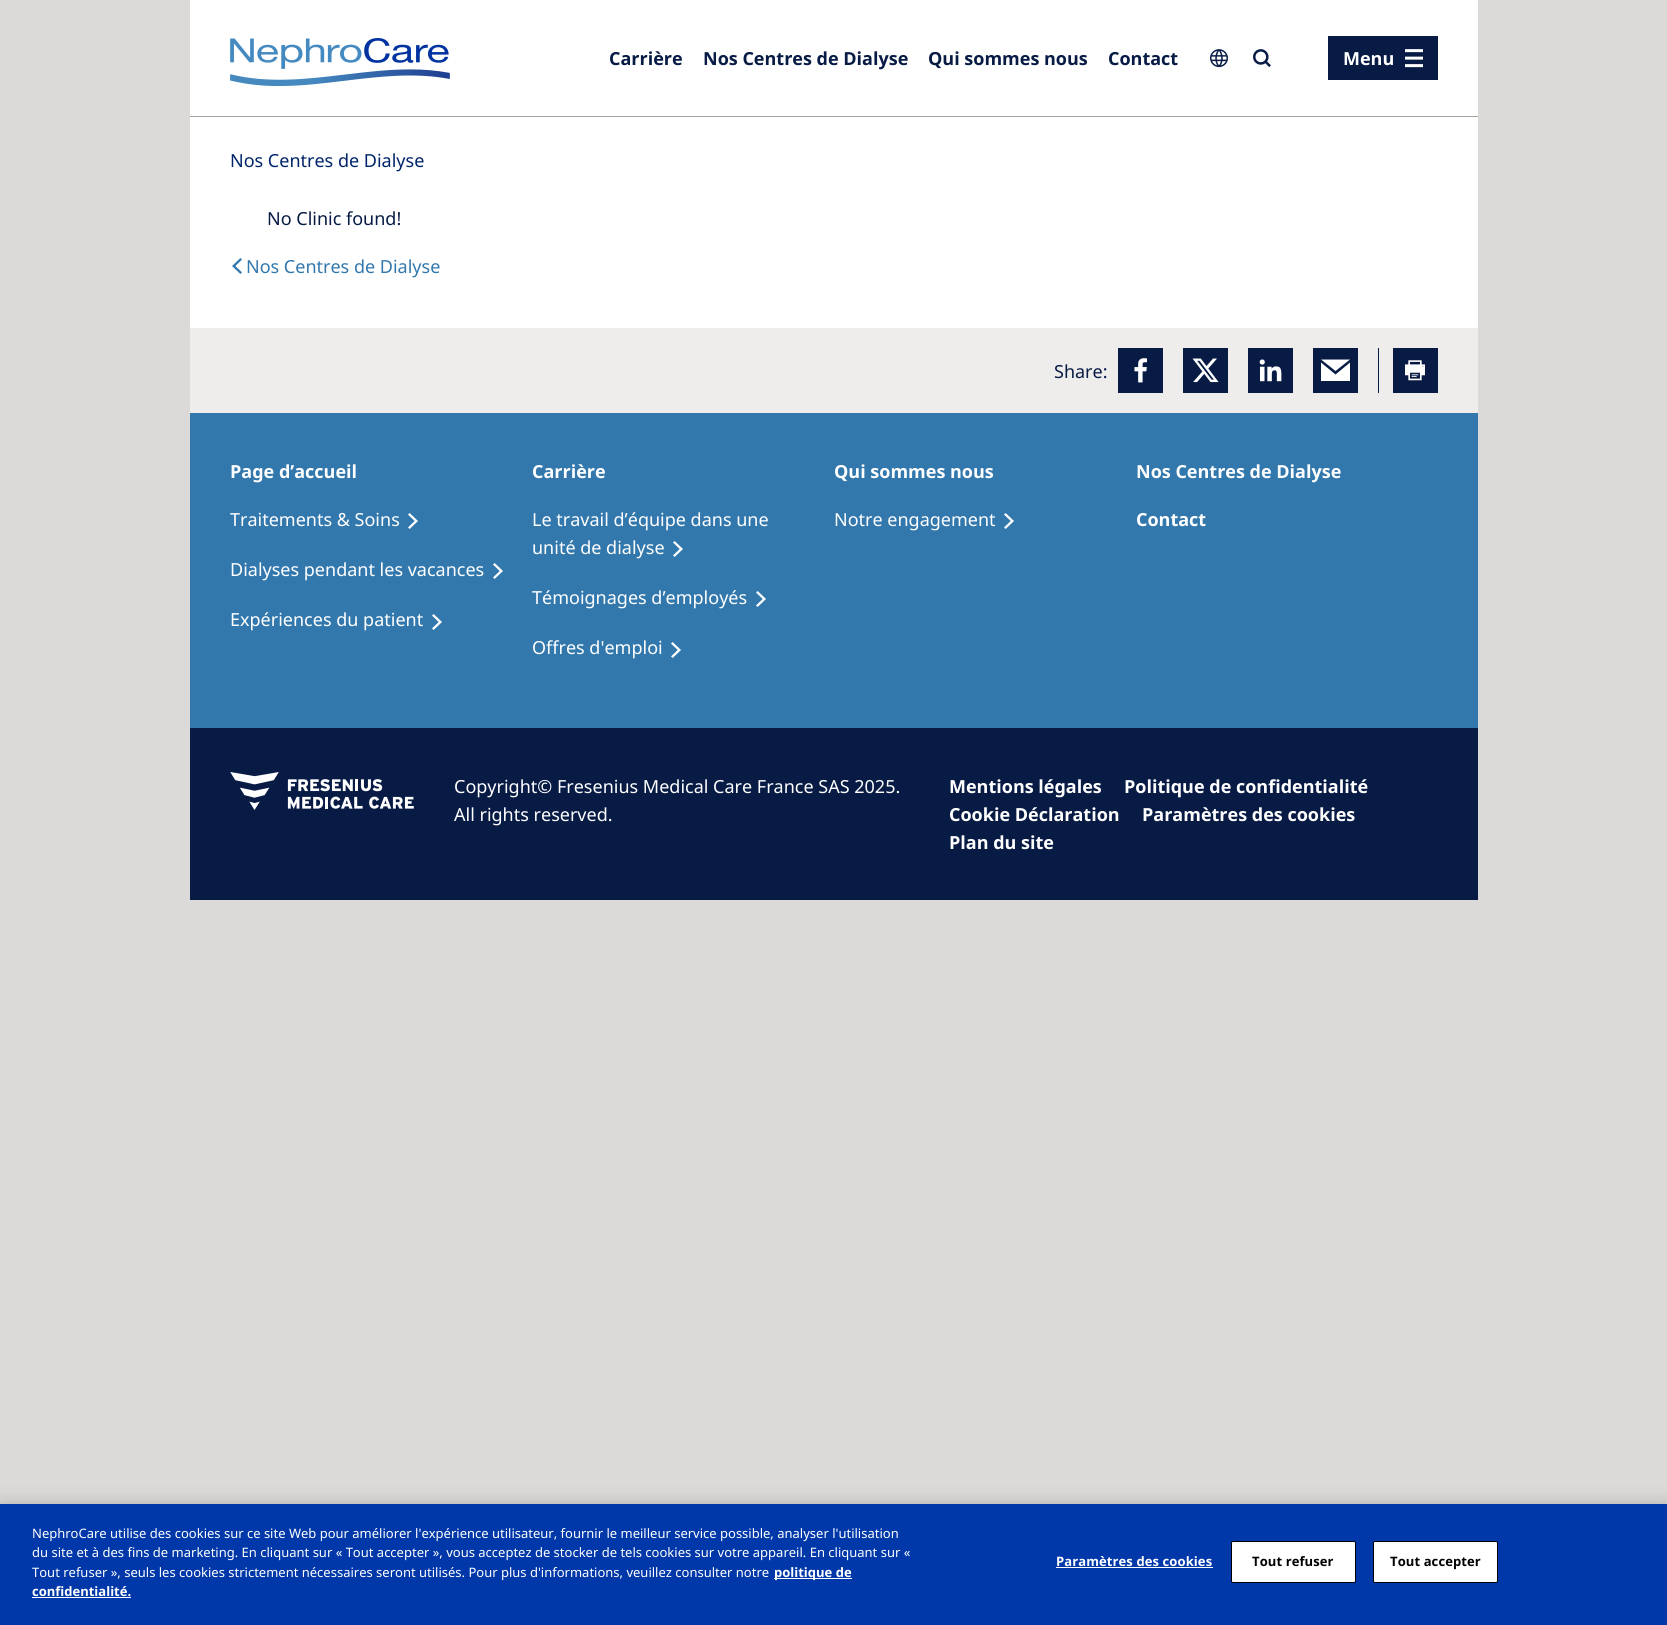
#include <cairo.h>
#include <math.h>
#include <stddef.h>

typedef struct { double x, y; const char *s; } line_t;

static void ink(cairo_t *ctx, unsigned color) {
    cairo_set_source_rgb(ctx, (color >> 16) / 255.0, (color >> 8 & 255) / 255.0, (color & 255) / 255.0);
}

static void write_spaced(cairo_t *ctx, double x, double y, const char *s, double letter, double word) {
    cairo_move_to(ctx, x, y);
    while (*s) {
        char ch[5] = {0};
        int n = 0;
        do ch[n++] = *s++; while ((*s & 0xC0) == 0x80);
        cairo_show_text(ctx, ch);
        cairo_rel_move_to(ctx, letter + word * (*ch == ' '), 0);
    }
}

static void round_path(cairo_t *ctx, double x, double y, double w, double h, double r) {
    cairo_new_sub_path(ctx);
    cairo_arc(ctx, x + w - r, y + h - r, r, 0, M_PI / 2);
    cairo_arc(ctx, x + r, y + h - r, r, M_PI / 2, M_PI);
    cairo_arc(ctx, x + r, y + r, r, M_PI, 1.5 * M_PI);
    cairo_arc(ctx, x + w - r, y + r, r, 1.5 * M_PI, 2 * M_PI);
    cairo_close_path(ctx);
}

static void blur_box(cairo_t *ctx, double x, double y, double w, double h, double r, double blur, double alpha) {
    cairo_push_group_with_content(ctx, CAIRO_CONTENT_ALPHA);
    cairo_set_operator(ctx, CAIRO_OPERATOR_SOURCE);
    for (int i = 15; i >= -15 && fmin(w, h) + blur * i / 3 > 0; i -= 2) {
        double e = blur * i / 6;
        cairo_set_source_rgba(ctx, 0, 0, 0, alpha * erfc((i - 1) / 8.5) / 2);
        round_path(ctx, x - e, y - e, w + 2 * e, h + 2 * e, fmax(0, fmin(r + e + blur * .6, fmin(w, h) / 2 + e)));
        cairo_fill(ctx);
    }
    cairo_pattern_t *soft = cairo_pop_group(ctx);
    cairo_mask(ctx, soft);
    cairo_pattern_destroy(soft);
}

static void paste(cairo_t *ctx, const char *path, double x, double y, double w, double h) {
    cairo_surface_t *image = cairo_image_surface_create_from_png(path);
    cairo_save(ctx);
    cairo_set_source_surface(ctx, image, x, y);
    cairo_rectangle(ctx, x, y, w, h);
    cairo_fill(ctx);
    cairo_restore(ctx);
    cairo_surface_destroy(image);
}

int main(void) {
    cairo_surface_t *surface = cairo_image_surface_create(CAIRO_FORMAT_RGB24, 1667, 1625);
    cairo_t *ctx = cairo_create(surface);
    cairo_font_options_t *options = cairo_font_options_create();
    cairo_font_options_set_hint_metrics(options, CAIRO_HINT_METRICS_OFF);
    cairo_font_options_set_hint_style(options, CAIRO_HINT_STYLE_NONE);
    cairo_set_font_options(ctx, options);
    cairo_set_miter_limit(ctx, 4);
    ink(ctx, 0xDCDAD8);
    cairo_paint(ctx);
    ink(ctx, 0xFFFFFF);
    cairo_rectangle(ctx, 190, 0, 1288, 116);
    cairo_fill(ctx);
    ink(ctx, 0xA8A39D);
    cairo_rectangle(ctx, 190, 116, 1288, 1);
    cairo_fill(ctx);
    paste(ctx, "media/1.png", 230, 38, 220, 48);
    cairo_select_font_face(ctx, "Noto Sans", CAIRO_FONT_SLANT_NORMAL, CAIRO_FONT_WEIGHT_BOLD);
    cairo_set_font_size(ctx, 18);
    ink(ctx, 0x071B45);
    {
        static const line_t items[] = {
            {609, 65, "Carrière"},
            {703, 65, "Nos Centres de Dialyse"},
            {928, 65, "Qui sommes nous"},
            {1108, 65, "Contact"},
        };
        for (size_t i = 0; i < sizeof items / sizeof *items; i++) {
            cairo_move_to(ctx, items[i].x, items[i].y);
            cairo_show_text(ctx, items[i].s);
        }
    }
    paste(ctx, "media/2.png", 1210, 49, 18, 19);
    paste(ctx, "media/3.png", 1253, 49, 18, 18);
    cairo_rectangle(ctx, 1328, 36, 110, 44);
    cairo_fill(ctx);
    ink(ctx, 0xFFFFFF);
    cairo_move_to(ctx, 1343, 65);
    cairo_show_text(ctx, "Menu");
    paste(ctx, "media/4.png", 1405, 49, 18, 19);
    cairo_rectangle(ctx, 190, 117, 1288, 211);
    cairo_fill(ctx);
    cairo_select_font_face(ctx, "Noto Sans", CAIRO_FONT_SLANT_NORMAL, CAIRO_FONT_WEIGHT_NORMAL);
    ink(ctx, 0x00246B);
    cairo_move_to(ctx, 230, 167);
    cairo_show_text(ctx, "Nos Centres de Dialyse");
    ink(ctx, 0x071B45);
    cairo_move_to(ctx, 267, 225);
    cairo_show_text(ctx, "No Clinic found!");
    paste(ctx, "media/5.png", 232, 258, 10, 16);
    ink(ctx, 0x3278AD);
    cairo_move_to(ctx, 246, 273);
    cairo_show_text(ctx, "Nos Centres de Dialyse");
    ink(ctx, 0xEEEDEB);
    cairo_rectangle(ctx, 190, 328, 1288, 85);
    cairo_fill(ctx);
    ink(ctx, 0x071B45);
    cairo_move_to(ctx, 1054, 378);
    cairo_show_text(ctx, "Share:");
    cairo_rectangle(ctx, 1118, 348, 45, 45);
    cairo_fill(ctx);
    paste(ctx, "media/6.png", 1134, 358, 13, 25);
    cairo_rectangle(ctx, 1183, 348, 45, 45);
    cairo_fill(ctx);
    paste(ctx, "media/7.png", 1192, 358, 27, 25);
    cairo_rectangle(ctx, 1248, 348, 45, 45);
    cairo_fill(ctx);
    paste(ctx, "media/8.png", 1259, 359, 23, 23);
    cairo_rectangle(ctx, 1313, 348, 45, 45);
    cairo_fill(ctx);
    ink(ctx, 0xFFFFFF);
    cairo_new_path(ctx);
    cairo_move_to(ctx, 1335.5, 371);
    cairo_line_to(ctx, 1321, 359.5);
    cairo_line_to(ctx, 1350, 359.5);
    cairo_close_path(ctx);
    cairo_move_to(ctx, 1335.5, 374.5);
    cairo_line_to(ctx, 1321, 362.5);
    cairo_line_to(ctx, 1321, 381);
    cairo_line_to(ctx, 1350, 381);
    cairo_line_to(ctx, 1350, 362.5);
    cairo_close_path(ctx);
    cairo_fill(ctx);
    ink(ctx, 0x071B45);
    cairo_rectangle(ctx, 1393, 348, 45, 45);
    cairo_fill(ctx);
    cairo_rectangle(ctx, 1378, 348, 1, 45);
    cairo_fill(ctx);
    paste(ctx, "media/9.png", 1405, 360, 20, 21);
    ink(ctx, 0x3278AD);
    cairo_rectangle(ctx, 190, 413, 1288, 315);
    cairo_fill(ctx);
    cairo_select_font_face(ctx, "Noto Sans", CAIRO_FONT_SLANT_NORMAL, CAIRO_FONT_WEIGHT_BOLD);
    ink(ctx, 0xFFFFFF);
    cairo_move_to(ctx, 230, 478);
    cairo_show_text(ctx, "Page d’accueil");
    cairo_select_font_face(ctx, "Noto Sans", CAIRO_FONT_SLANT_NORMAL, CAIRO_FONT_WEIGHT_NORMAL);
    cairo_move_to(ctx, 230, 526);
    cairo_show_text(ctx, "Traitements & Soins");
    paste(ctx, "media/10.png", 408, 513, 10, 16);
    cairo_move_to(ctx, 230, 576);
    cairo_show_text(ctx, "Dialyses pendant les vacances");
    paste(ctx, "media/10.png", 493, 563, 10, 16);
    cairo_move_to(ctx, 230, 626);
    cairo_show_text(ctx, "Expériences du patient");
    paste(ctx, "media/10.png", 432, 614, 10, 16);
    cairo_select_font_face(ctx, "Noto Sans", CAIRO_FONT_SLANT_NORMAL, CAIRO_FONT_WEIGHT_BOLD);
    cairo_move_to(ctx, 532, 478);
    cairo_show_text(ctx, "Carrière");
    cairo_select_font_face(ctx, "Noto Sans", CAIRO_FONT_SLANT_NORMAL, CAIRO_FONT_WEIGHT_NORMAL);
    cairo_move_to(ctx, 532, 526);
    cairo_show_text(ctx, "Le travail d’équipe dans une");
    cairo_move_to(ctx, 532, 554);
    cairo_show_text(ctx, "unité de dialyse");
    paste(ctx, "media/10.png", 673, 541, 10, 16);
    cairo_move_to(ctx, 532, 604);
    cairo_show_text(ctx, "Témoignages d’employés");
    paste(ctx, "media/10.png", 756, 591, 10, 16);
    cairo_move_to(ctx, 532, 654);
    cairo_show_text(ctx, "Offres d'emploi");
    paste(ctx, "media/10.png", 671, 642, 10, 16);
    cairo_select_font_face(ctx, "Noto Sans", CAIRO_FONT_SLANT_NORMAL, CAIRO_FONT_WEIGHT_BOLD);
    cairo_move_to(ctx, 834, 478);
    cairo_show_text(ctx, "Qui sommes nous");
    cairo_select_font_face(ctx, "Noto Sans", CAIRO_FONT_SLANT_NORMAL, CAIRO_FONT_WEIGHT_NORMAL);
    cairo_move_to(ctx, 834, 526);
    cairo_show_text(ctx, "Notre engagement");
    paste(ctx, "media/10.png", 1004, 513, 10, 16);
    cairo_select_font_face(ctx, "Noto Sans", CAIRO_FONT_SLANT_NORMAL, CAIRO_FONT_WEIGHT_BOLD);
    cairo_move_to(ctx, 1136, 478);
    cairo_show_text(ctx, "Nos Centres de Dialyse");
    cairo_move_to(ctx, 1136, 526);
    cairo_show_text(ctx, "Contact");
    ink(ctx, 0x071B45);
    cairo_rectangle(ctx, 190, 728, 1288, 172);
    cairo_fill(ctx);
    paste(ctx, "media/11.png", 230, 772, 184, 38);
    cairo_select_font_face(ctx, "Noto Sans", CAIRO_FONT_SLANT_NORMAL, CAIRO_FONT_WEIGHT_NORMAL);
    ink(ctx, 0xFFFFFF);
    cairo_move_to(ctx, 454, 793);
    cairo_show_text(ctx, "Copyright© Fresenius Medical Care France SAS 2025.");
    cairo_move_to(ctx, 454, 821);
    cairo_show_text(ctx, "All rights reserved.");
    cairo_select_font_face(ctx, "Noto Sans", CAIRO_FONT_SLANT_NORMAL, CAIRO_FONT_WEIGHT_BOLD);
    {
        static const line_t items[] = {
            {949, 793, "Mentions légales"},
            {1124, 793, "Politique de confidentialité"},
            {949, 821, "Cookie Déclaration"},
            {1142, 821, "Paramètres des cookies"},
            {949, 849, "Plan du site"},
        };
        for (size_t i = 0; i < sizeof items / sizeof *items; i++) {
            cairo_move_to(ctx, items[i].x, items[i].y);
            cairo_show_text(ctx, items[i].s);
        }
    }
    ink(ctx, 0x000000);
    blur_box(ctx, 0, 1504, 1667, 121, 0, 9, 0.2);
    ink(ctx, 0x0038A9);
    cairo_rectangle(ctx, 0, 1504, 1667, 121);
    cairo_fill(ctx);
    cairo_select_font_face(ctx, "Noto Sans", CAIRO_FONT_SLANT_NORMAL, CAIRO_FONT_WEIGHT_NORMAL);
    cairo_set_font_size(ctx, 13);
    ink(ctx, 0xFFFFFF);
    {
        static const line_t items[] = {
            {32, 1538, "NephroCare utilise des cookies sur ce site Web pour améliorer l'expérience utilisateur, fournir le meilleur service possible, analyser l'utilisation"},
            {32, 1557, "du site et à des fins de marketing. En cliquant sur « Tout accepter », vous acceptez de stocker de tels cookies sur votre appareil. En cliquant sur «"},
            {32, 1577, "Tout refuser », seuls les cookies strictement nécessaires seront utilisés. Pour plus d'informations, veuillez consulter notre"},
        };
        for (size_t i = 0; i < sizeof items / sizeof *items; i++) {
            cairo_move_to(ctx, items[i].x, items[i].y);
            cairo_show_text(ctx, items[i].s);
        }
    }
    cairo_rectangle(ctx, 774, 1578, 78, 1);
    cairo_fill(ctx);
    cairo_select_font_face(ctx, "Noto Sans", CAIRO_FONT_SLANT_NORMAL, CAIRO_FONT_WEIGHT_BOLD);
    cairo_move_to(ctx, 774, 1577);
    cairo_show_text(ctx, "politique de");
    cairo_move_to(ctx, 32, 1596);
    cairo_show_text(ctx, "confidentialité.");
    cairo_rectangle(ctx, 32, 1597, 99, 1);
    cairo_fill(ctx);
    write_spaced(ctx, 1056, 1566, "Paramètres des cookies", 0.1, 0);
    cairo_rectangle(ctx, 1056, 1567, 157, 1);
    cairo_fill(ctx);
    round_path(ctx, 1231.5, 1541.5, 124, 41, 1.5);
    cairo_fill_preserve(ctx);
    ink(ctx, 0x000000);
    cairo_set_line_width(ctx, 1);
    cairo_stroke(ctx);
    write_spaced(ctx, 1252, 1566, "Tout refuser", 0.1, 0);
    ink(ctx, 0xFFFFFF);
    round_path(ctx, 1373.5, 1541.5, 124, 41, 1.5);
    cairo_fill_preserve(ctx);
    ink(ctx, 0x000000);
    cairo_stroke(ctx);
    write_spaced(ctx, 1390, 1566, "Tout accepter", 0.1, 0);
    cairo_surface_write_to_png(surface, "image.png");
    cairo_font_options_destroy(options);
    cairo_destroy(ctx);
    cairo_surface_destroy(surface);
    return 0;
}
